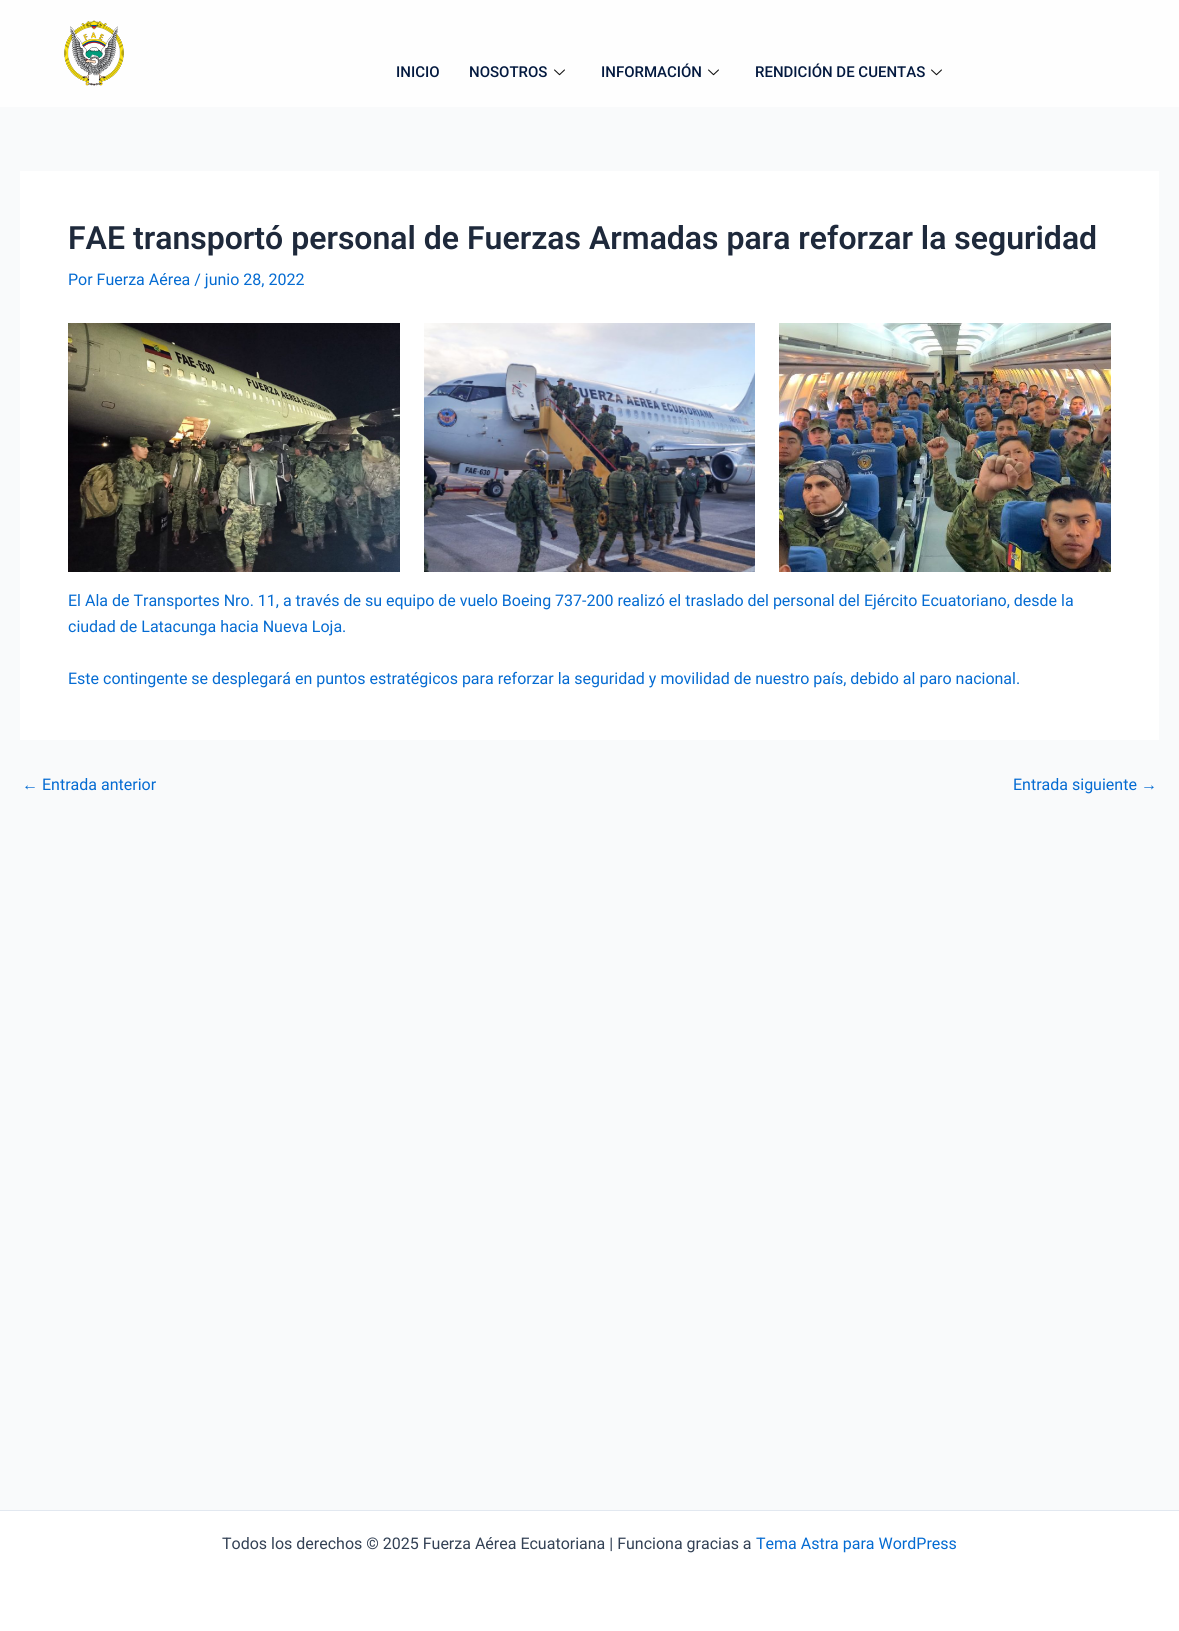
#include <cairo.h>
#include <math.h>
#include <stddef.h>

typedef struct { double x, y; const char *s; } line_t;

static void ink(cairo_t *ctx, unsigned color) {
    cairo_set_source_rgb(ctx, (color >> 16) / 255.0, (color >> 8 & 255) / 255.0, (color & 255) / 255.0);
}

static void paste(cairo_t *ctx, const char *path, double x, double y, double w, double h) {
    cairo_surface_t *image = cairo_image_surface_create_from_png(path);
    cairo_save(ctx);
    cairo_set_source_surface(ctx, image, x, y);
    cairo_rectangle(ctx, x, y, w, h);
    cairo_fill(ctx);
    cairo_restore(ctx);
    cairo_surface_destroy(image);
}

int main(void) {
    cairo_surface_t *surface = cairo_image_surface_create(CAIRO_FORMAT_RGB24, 1179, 1631);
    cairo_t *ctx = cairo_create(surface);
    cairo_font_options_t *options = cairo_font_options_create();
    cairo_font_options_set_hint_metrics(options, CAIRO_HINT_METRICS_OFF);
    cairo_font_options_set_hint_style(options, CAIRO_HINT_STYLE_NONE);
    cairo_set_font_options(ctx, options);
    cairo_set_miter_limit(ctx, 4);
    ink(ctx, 0xF9FAFB);
    cairo_paint(ctx);
    ink(ctx, 0xFEFEFE);
    cairo_rectangle(ctx, 0, 0, 1179, 107);
    cairo_fill(ctx);
    paste(ctx, "media/1.png", 64, 20, 60, 66);
    cairo_select_font_face(ctx, "Roboto Medium", CAIRO_FONT_SLANT_NORMAL, CAIRO_FONT_WEIGHT_NORMAL);
    cairo_set_font_size(ctx, 15);
    ink(ctx, 0x03193F);
    cairo_move_to(ctx, 396, 77);
    cairo_show_text(ctx, "INICIO");
    cairo_move_to(ctx, 469, 77);
    cairo_show_text(ctx, "NOSOTROS");
    paste(ctx, "media/2.png", 554, 69, 11, 7);
    cairo_move_to(ctx, 601, 77);
    cairo_show_text(ctx, "INFORMACIÓN");
    paste(ctx, "media/2.png", 708, 69, 11, 7);
    cairo_move_to(ctx, 755, 77);
    cairo_show_text(ctx, "RENDICIÓN DE CUENTAS");
    paste(ctx, "media/2.png", 931, 69, 11, 7);
    ink(ctx, 0xFFFFFF);
    cairo_rectangle(ctx, 20, 171, 1139, 569);
    cairo_fill(ctx);
    cairo_select_font_face(ctx, "Roboto SemiBold", CAIRO_FONT_SLANT_NORMAL, CAIRO_FONT_WEIGHT_NORMAL);
    cairo_set_font_size(ctx, 32);
    ink(ctx, 0x1E293B);
    cairo_move_to(ctx, 68, 249);
    cairo_show_text(ctx, "FAE transportó personal de Fuerzas Armadas para reforzar la seguridad");
    cairo_select_font_face(ctx, "Roboto", CAIRO_FONT_SLANT_NORMAL, CAIRO_FONT_WEIGHT_NORMAL);
    cairo_set_font_size(ctx, 16);
    ink(ctx, 0x046BD2);
    cairo_move_to(ctx, 68, 285);
    cairo_show_text(ctx, "Por Fuerza Aérea / junio 28, 2022");
    paste(ctx, "media/3.png", 68, 323, 332, 249);
    paste(ctx, "media/4.png", 424, 323, 331, 249);
    paste(ctx, "media/5.png", 779, 323, 332, 249);
    {
        static const line_t items[] = {
            {68, 606, "El Ala de Transportes Nro. 11, a través de su equipo de vuelo Boeing 737-200 realizó el traslado del personal del Ejército Ecuatoriano, desde la"},
            {68, 632, "ciudad de Latacunga hacia Nueva Loja."},
            {68, 684, "Este contingente se desplegará en puntos estratégicos para reforzar la seguridad y movilidad de nuestro país, debido al paro nacional."},
        };
        for (size_t i = 0; i < sizeof items / sizeof *items; i++) {
            cairo_move_to(ctx, items[i].x, items[i].y);
            cairo_show_text(ctx, items[i].s);
        }
    }
    cairo_select_font_face(ctx, "Liberation Sans", CAIRO_FONT_SLANT_NORMAL, CAIRO_FONT_WEIGHT_NORMAL);
    cairo_move_to(ctx, 22, 790);
    cairo_show_text(ctx, "←");
    cairo_select_font_face(ctx, "Roboto", CAIRO_FONT_SLANT_NORMAL, CAIRO_FONT_WEIGHT_NORMAL);
    cairo_move_to(ctx, 42, 790);
    cairo_show_text(ctx, "Entrada anterior");
    cairo_move_to(ctx, 1013, 790);
    cairo_show_text(ctx, "Entrada siguiente");
    cairo_select_font_face(ctx, "Liberation Sans", CAIRO_FONT_SLANT_NORMAL, CAIRO_FONT_WEIGHT_NORMAL);
    cairo_move_to(ctx, 1141, 790);
    cairo_show_text(ctx, "→");
    ink(ctx, 0xFFFFFF);
    cairo_rectangle(ctx, 0, 1511, 1179, 120);
    cairo_fill(ctx);
    ink(ctx, 0xE2E8F0);
    cairo_rectangle(ctx, 0, 1510, 1179, 1);
    cairo_fill(ctx);
    cairo_select_font_face(ctx, "Roboto", CAIRO_FONT_SLANT_NORMAL, CAIRO_FONT_WEIGHT_NORMAL);
    ink(ctx, 0x334155);
    cairo_move_to(ctx, 222, 1549);
    cairo_show_text(ctx, "Todos los derechos © 2025 Fuerza Aérea Ecuatoriana | Funciona gracias a");
    ink(ctx, 0x046BD2);
    cairo_move_to(ctx, 756, 1549);
    cairo_show_text(ctx, "Tema Astra para WordPress");
    cairo_surface_write_to_png(surface, "image.png");
    cairo_font_options_destroy(options);
    cairo_destroy(ctx);
    cairo_surface_destroy(surface);
    return 0;
}
